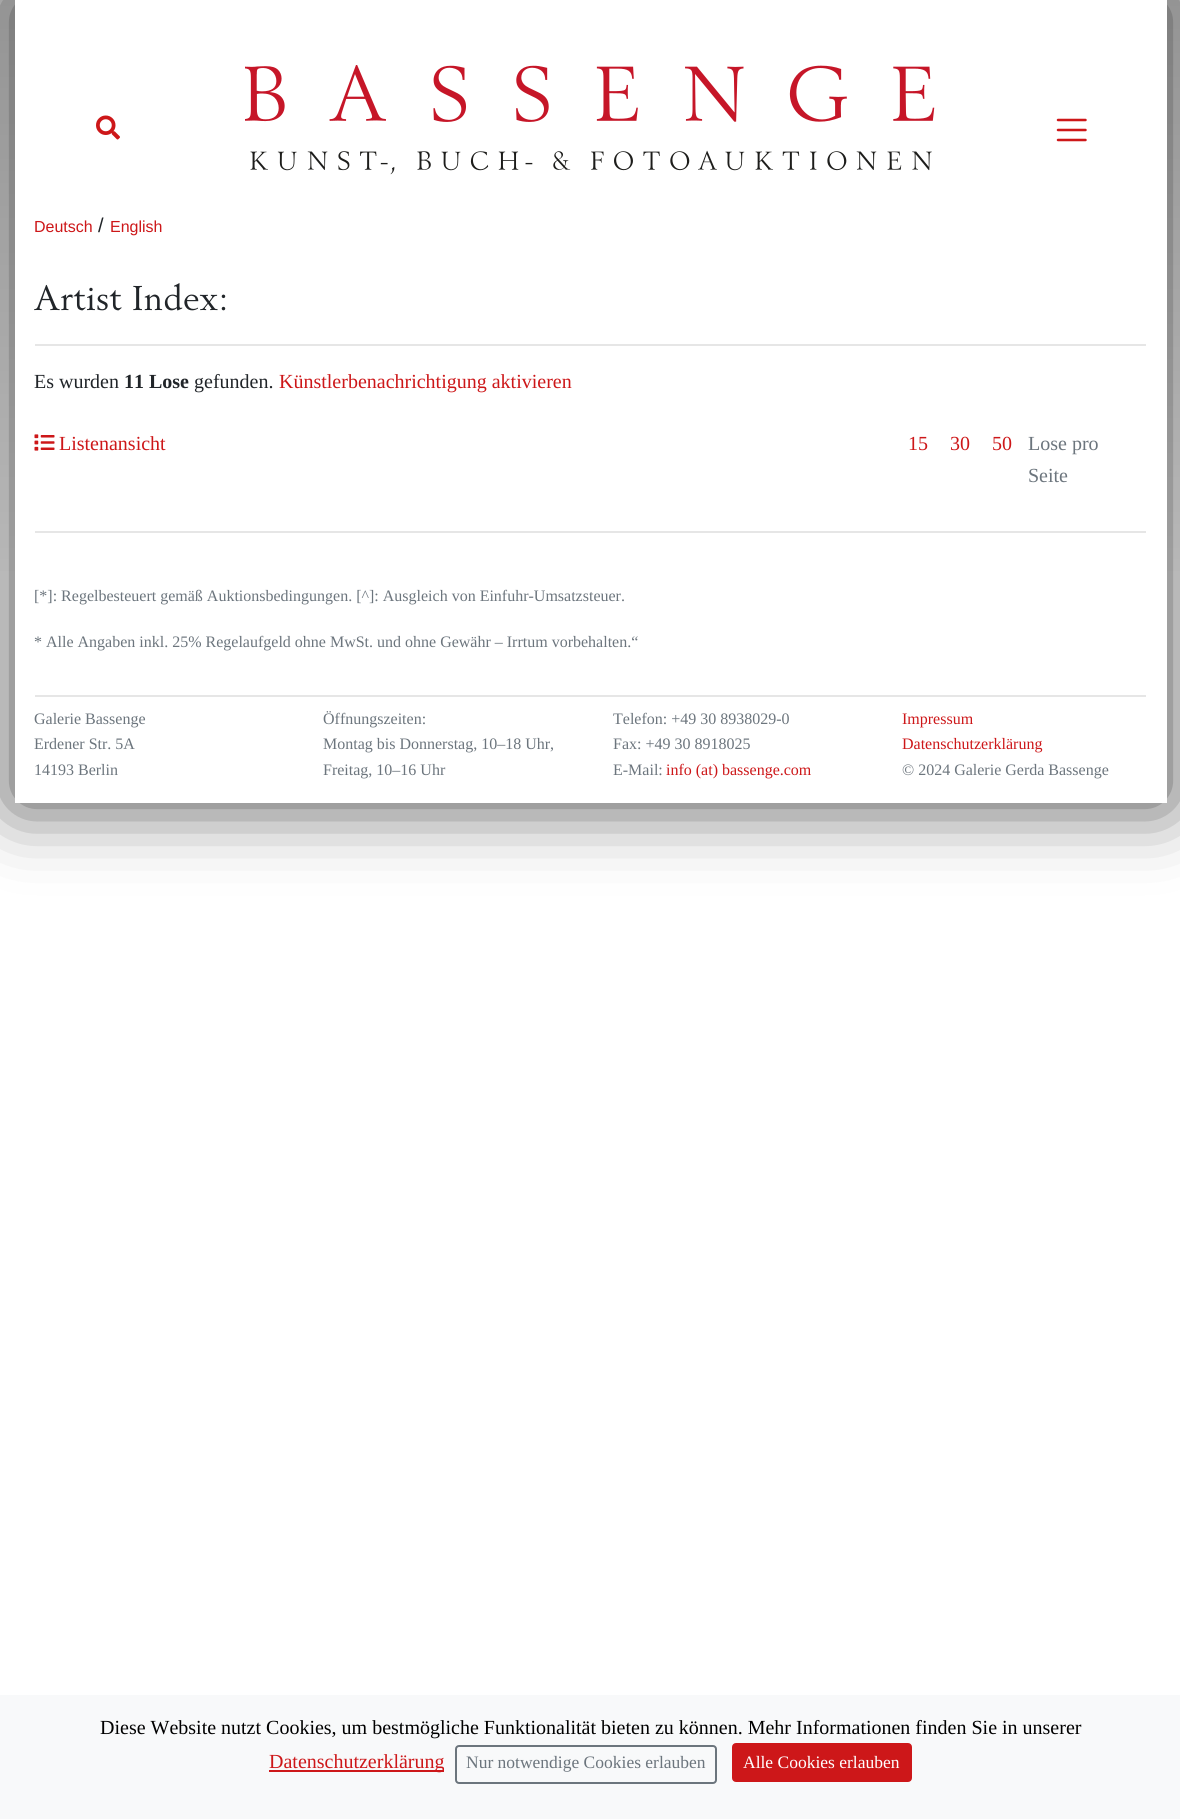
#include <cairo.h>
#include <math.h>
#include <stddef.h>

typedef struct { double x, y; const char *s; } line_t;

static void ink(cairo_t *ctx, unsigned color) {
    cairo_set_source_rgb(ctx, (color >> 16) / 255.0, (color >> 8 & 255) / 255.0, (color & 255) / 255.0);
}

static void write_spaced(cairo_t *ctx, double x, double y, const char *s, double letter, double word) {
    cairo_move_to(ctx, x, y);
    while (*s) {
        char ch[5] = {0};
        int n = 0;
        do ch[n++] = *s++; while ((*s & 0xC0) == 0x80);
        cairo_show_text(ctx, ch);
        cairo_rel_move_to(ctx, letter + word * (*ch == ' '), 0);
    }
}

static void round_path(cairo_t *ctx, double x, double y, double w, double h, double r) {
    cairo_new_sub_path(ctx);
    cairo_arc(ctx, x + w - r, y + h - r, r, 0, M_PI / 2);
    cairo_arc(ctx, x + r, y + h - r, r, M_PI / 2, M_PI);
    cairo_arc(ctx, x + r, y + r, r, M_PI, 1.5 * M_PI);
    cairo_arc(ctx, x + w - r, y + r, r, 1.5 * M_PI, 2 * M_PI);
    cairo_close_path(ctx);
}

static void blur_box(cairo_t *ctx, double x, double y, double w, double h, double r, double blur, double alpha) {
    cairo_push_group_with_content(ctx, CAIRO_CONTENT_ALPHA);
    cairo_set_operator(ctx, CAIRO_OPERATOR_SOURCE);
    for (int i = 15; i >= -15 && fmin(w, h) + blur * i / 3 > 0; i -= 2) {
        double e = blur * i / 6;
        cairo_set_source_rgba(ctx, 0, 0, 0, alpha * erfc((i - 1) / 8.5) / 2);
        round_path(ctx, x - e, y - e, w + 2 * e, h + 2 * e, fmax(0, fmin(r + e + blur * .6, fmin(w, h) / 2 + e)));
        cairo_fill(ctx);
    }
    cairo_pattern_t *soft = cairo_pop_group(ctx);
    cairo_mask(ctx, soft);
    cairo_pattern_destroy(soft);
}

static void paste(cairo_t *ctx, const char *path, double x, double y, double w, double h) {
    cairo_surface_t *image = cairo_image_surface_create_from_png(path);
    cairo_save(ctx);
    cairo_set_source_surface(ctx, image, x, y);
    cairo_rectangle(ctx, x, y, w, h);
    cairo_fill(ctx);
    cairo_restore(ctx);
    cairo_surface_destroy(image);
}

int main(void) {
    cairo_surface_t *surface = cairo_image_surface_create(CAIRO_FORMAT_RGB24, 1180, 1819);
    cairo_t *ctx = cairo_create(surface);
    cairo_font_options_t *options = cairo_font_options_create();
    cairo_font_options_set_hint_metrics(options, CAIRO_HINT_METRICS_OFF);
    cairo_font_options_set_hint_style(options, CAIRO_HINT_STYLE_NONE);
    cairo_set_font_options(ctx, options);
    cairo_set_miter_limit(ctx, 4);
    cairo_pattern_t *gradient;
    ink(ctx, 0xFFFFFF);
    cairo_paint(ctx);
    gradient = cairo_pattern_create_linear(590, 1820, 590, 0);
    cairo_pattern_add_color_stop_rgba(gradient, 0, 1, 1, 1, 1);
    cairo_pattern_add_color_stop_rgba(gradient, 0.67, 1, 1, 1, 1);
    cairo_pattern_add_color_stop_rgba(gradient, 1, 0.8, 0.8, 0.8, 1);
    cairo_set_source(ctx, gradient);
    cairo_pattern_destroy(gradient);
    cairo_rectangle(ctx, 0, 0, 1180, 571);
    cairo_fill(ctx);
    ink(ctx, 0x000000);
    blur_box(ctx, 15, 0, 1152, 803, 0, 37, 0.75);
    ink(ctx, 0xFFFFFF);
    cairo_rectangle(ctx, 15, 0, 1152, 803);
    cairo_fill(ctx);
    paste(ctx, "media/1.png", 96, 115, 24, 25);
    paste(ctx, "media/2.png", 245, 65, 690, 110);
    cairo_new_path(ctx);
    cairo_move_to(ctx, 1058, 120);
    cairo_line_to(ctx, 1085.5, 120);
    cairo_move_to(ctx, 1058, 130);
    cairo_line_to(ctx, 1085.5, 130);
    cairo_move_to(ctx, 1058, 140);
    cairo_line_to(ctx, 1085.5, 140);
    ink(ctx, 0xCD1719);
    cairo_set_line_width(ctx, 2.5);
    cairo_set_line_cap(ctx, CAIRO_LINE_CAP_ROUND);
    cairo_stroke(ctx);
    cairo_select_font_face(ctx, "Liberation Sans", CAIRO_FONT_SLANT_NORMAL, CAIRO_FONT_WEIGHT_NORMAL);
    cairo_set_font_size(ctx, 16);
    cairo_move_to(ctx, 34, 232);
    cairo_show_text(ctx, "Deutsch");
    cairo_set_font_size(ctx, 20);
    ink(ctx, 0x212529);
    cairo_move_to(ctx, 98, 232);
    cairo_show_text(ctx, "/");
    cairo_set_font_size(ctx, 16);
    ink(ctx, 0xCD1719);
    cairo_move_to(ctx, 110, 232);
    cairo_show_text(ctx, "English");
    cairo_select_font_face(ctx, "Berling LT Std", CAIRO_FONT_SLANT_NORMAL, CAIRO_FONT_WEIGHT_NORMAL);
    cairo_set_font_size(ctx, 34);
    ink(ctx, 0x212529);
    write_spaced(ctx, 34, 310, "Artist Index:", 0.6, 0);
    ink(ctx, 0xE6E6E6);
    cairo_rectangle(ctx, 35, 344, 1111, 2);
    cairo_fill(ctx);
    cairo_select_font_face(ctx, "Liberation Serif", CAIRO_FONT_SLANT_NORMAL, CAIRO_FONT_WEIGHT_NORMAL);
    cairo_set_font_size(ctx, 20);
    ink(ctx, 0x212529);
    cairo_move_to(ctx, 34, 388);
    cairo_show_text(ctx, "Es wurden");
    cairo_select_font_face(ctx, "Liberation Serif", CAIRO_FONT_SLANT_NORMAL, CAIRO_FONT_WEIGHT_BOLD);
    cairo_move_to(ctx, 124, 388);
    cairo_show_text(ctx, "11 Lose");
    cairo_select_font_face(ctx, "Liberation Serif", CAIRO_FONT_SLANT_NORMAL, CAIRO_FONT_WEIGHT_NORMAL);
    cairo_move_to(ctx, 194, 388);
    cairo_show_text(ctx, "gefunden.");
    ink(ctx, 0xCD1719);
    cairo_move_to(ctx, 279, 388);
    cairo_show_text(ctx, "Künstlerbenachrichtigung aktivieren");
    paste(ctx, "media/3.png", 34, 434, 21, 17);
    {
        static const line_t items[] = {
            {59, 450, "Listenansicht"},
            {908, 450, "15"},
            {950, 450, "30"},
            {992, 450, "50"},
        };
        for (size_t i = 0; i < sizeof items / sizeof *items; i++) {
            cairo_move_to(ctx, items[i].x, items[i].y);
            cairo_show_text(ctx, items[i].s);
        }
    }
    ink(ctx, 0x6C757D);
    cairo_move_to(ctx, 1028, 450);
    cairo_show_text(ctx, "Lose pro");
    cairo_move_to(ctx, 1028, 482);
    cairo_show_text(ctx, "Seite");
    ink(ctx, 0xE6E6E6);
    cairo_rectangle(ctx, 35, 531, 1111, 2);
    cairo_fill(ctx);
    cairo_set_font_size(ctx, 16);
    ink(ctx, 0x6C757D);
    cairo_move_to(ctx, 34, 601);
    cairo_show_text(ctx, "[*]: Regelbesteuert gemäß Auktionsbedingungen. [^]: Ausgleich von Einfuhr-Umsatzsteuer.");
    cairo_move_to(ctx, 34, 647);
    cairo_show_text(ctx, "* Alle Angaben inkl. 25% Regelaufgeld ohne MwSt. und ohne Gewähr – Irrtum vorbehalten.“");
    ink(ctx, 0xE6E6E6);
    cairo_rectangle(ctx, 35, 695, 1111, 2);
    cairo_fill(ctx);
    ink(ctx, 0x6C757D);
    {
        static const line_t items[] = {
            {34, 724, "Galerie Bassenge"},
            {34, 749, "Erdener Str. 5A"},
            {34, 775, "14193 Berlin"},
            {323, 724, "Öffnungszeiten:"},
            {323, 749, "Montag bis Donnerstag, 10–18 Uhr,"},
            {323, 775, "Freitag, 10–16 Uhr"},
            {613, 724, "Telefon: +49 30 8938029-0"},
            {613, 749, "Fax: +49 30 8918025"},
            {613, 775, "E-Mail:"},
        };
        for (size_t i = 0; i < sizeof items / sizeof *items; i++) {
            cairo_move_to(ctx, items[i].x, items[i].y);
            cairo_show_text(ctx, items[i].s);
        }
    }
    ink(ctx, 0xCD1719);
    {
        static const line_t items[] = {
            {666, 775, "info (at) bassenge.com"},
            {902, 724, "Impressum"},
            {902, 749, "Datenschutzerklärung"},
        };
        for (size_t i = 0; i < sizeof items / sizeof *items; i++) {
            cairo_move_to(ctx, items[i].x, items[i].y);
            cairo_show_text(ctx, items[i].s);
        }
    }
    ink(ctx, 0x6C757D);
    cairo_move_to(ctx, 902, 775);
    cairo_show_text(ctx, "© 2024 Galerie Gerda Bassenge");
    ink(ctx, 0xF8F9FA);
    cairo_rectangle(ctx, 0, 1695, 1180, 124);
    cairo_fill(ctx);
    cairo_set_font_size(ctx, 20);
    ink(ctx, 0x000000);
    cairo_move_to(ctx, 100, 1734);
    cairo_show_text(ctx, "Diese Website nutzt Cookies, um bestmögliche Funktionalität bieten zu können. Mehr Informationen finden Sie in unserer");
    ink(ctx, 0xCD1719);
    cairo_rectangle(ctx, 269, 1770, 175, 2);
    cairo_fill(ctx);
    cairo_move_to(ctx, 269, 1768);
    cairo_show_text(ctx, "Datenschutzerklärung");
    round_path(ctx, 456, 1746, 260, 37, 3);
    ink(ctx, 0x6C757D);
    cairo_set_line_width(ctx, 2);
    cairo_set_line_cap(ctx, CAIRO_LINE_CAP_BUTT);
    cairo_stroke(ctx);
    cairo_set_font_size(ctx, 17.5);
    cairo_move_to(ctx, 466, 1768);
    cairo_show_text(ctx, "Nur notwendige Cookies erlauben");
    ink(ctx, 0xCD1719);
    round_path(ctx, 733, 1744, 178, 37, 3);
    cairo_fill_preserve(ctx);
    cairo_stroke(ctx);
    ink(ctx, 0xFFFFFF);
    cairo_move_to(ctx, 743, 1768);
    cairo_show_text(ctx, "Alle Cookies erlauben");
    cairo_surface_write_to_png(surface, "image.png");
    cairo_font_options_destroy(options);
    cairo_destroy(ctx);
    cairo_surface_destroy(surface);
    return 0;
}
